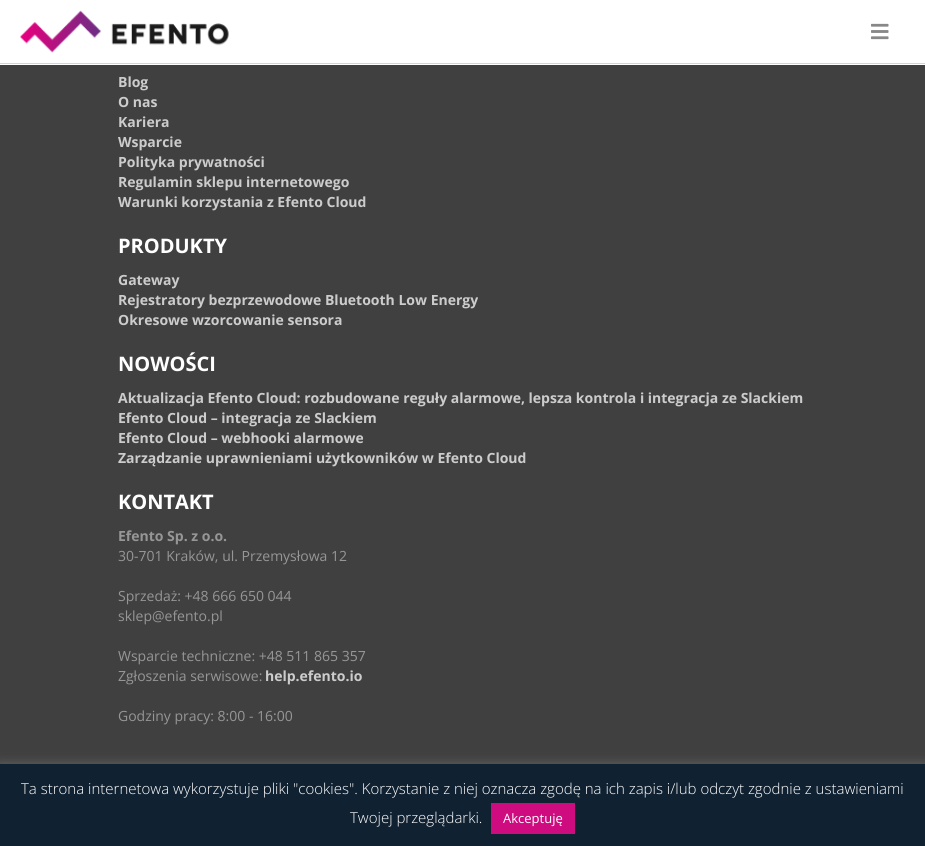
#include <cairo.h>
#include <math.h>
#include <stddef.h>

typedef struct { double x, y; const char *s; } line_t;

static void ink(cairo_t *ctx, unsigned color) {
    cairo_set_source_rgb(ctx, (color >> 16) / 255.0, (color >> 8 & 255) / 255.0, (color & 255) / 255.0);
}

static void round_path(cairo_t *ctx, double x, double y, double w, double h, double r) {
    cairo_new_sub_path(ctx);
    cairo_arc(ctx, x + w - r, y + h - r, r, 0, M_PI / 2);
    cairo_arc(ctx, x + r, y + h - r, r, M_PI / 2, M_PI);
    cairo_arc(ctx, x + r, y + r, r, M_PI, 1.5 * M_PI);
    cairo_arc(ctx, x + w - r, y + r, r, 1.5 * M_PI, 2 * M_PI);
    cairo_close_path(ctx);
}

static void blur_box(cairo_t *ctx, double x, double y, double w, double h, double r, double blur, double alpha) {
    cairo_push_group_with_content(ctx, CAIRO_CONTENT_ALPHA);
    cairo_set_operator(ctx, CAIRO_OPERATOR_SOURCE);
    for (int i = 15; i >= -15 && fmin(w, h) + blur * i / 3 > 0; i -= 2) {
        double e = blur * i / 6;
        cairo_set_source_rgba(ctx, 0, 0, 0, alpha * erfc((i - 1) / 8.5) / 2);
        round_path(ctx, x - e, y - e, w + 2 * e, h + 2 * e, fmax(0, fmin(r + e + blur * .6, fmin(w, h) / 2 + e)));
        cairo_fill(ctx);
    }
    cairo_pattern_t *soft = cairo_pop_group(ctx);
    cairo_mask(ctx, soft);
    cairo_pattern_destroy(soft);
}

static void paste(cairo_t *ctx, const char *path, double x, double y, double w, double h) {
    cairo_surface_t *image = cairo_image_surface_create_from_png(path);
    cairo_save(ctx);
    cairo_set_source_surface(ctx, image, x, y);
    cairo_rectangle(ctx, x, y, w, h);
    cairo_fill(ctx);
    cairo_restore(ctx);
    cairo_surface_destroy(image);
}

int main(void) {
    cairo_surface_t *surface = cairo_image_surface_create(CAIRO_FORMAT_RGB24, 925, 846);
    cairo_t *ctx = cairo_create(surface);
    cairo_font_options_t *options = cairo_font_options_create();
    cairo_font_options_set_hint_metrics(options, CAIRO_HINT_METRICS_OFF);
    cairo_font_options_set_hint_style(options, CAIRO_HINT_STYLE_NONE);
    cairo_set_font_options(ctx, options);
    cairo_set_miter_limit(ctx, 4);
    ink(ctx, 0x404040);
    cairo_paint(ctx);
    ink(ctx, 0xFFFFFF);
    cairo_rectangle(ctx, 0, 0, 925, 65);
    cairo_fill(ctx);
    ink(ctx, 0xD4D4D4);
    cairo_rectangle(ctx, 0, 63, 925, 1);
    cairo_fill(ctx);
    paste(ctx, "media/1.png", 20, 10, 209, 43);
    paste(ctx, "media/2.png", 871, 23, 18, 17);
    cairo_select_font_face(ctx, "Open Sans", CAIRO_FONT_SLANT_NORMAL, CAIRO_FONT_WEIGHT_BOLD);
    cairo_set_font_size(ctx, 14);
    ink(ctx, 0xCCCCCC);
    {
        static const line_t items[] = {
            {118, 87, "Blog"},
            {118, 107, "O nas"},
            {118, 127, "Kariera"},
            {118, 147, "Wsparcie"},
            {118, 167, "Polityka prywatności"},
            {118, 187, "Regulamin sklepu internetowego"},
            {118, 207, "Warunki korzystania z Efento Cloud"},
        };
        for (size_t i = 0; i < sizeof items / sizeof *items; i++) {
            cairo_move_to(ctx, items[i].x, items[i].y);
            cairo_show_text(ctx, items[i].s);
        }
    }
    cairo_set_font_size(ctx, 20);
    ink(ctx, 0xFFFFFF);
    cairo_move_to(ctx, 118, 253);
    cairo_show_text(ctx, "PRODUKTY");
    cairo_set_font_size(ctx, 14);
    ink(ctx, 0xCCCCCC);
    {
        static const line_t items[] = {
            {118, 285, "Gateway"},
            {118, 305, "Rejestratory bezprzewodowe Bluetooth Low Energy"},
            {118, 325, "Okresowe wzorcowanie sensora"},
        };
        for (size_t i = 0; i < sizeof items / sizeof *items; i++) {
            cairo_move_to(ctx, items[i].x, items[i].y);
            cairo_show_text(ctx, items[i].s);
        }
    }
    cairo_set_font_size(ctx, 20);
    ink(ctx, 0xFFFFFF);
    cairo_move_to(ctx, 118, 371);
    cairo_show_text(ctx, "NOWOŚCI");
    cairo_set_font_size(ctx, 14);
    ink(ctx, 0xCCCCCC);
    {
        static const line_t items[] = {
            {118, 403, "Aktualizacja Efento Cloud: rozbudowane reguły alarmowe, lepsza kontrola i integracja ze Slackiem"},
            {118, 423, "Efento Cloud – integracja ze Slackiem"},
            {118, 443, "Efento Cloud – webhooki alarmowe"},
            {118, 463, "Zarządzanie uprawnieniami użytkowników w Efento Cloud"},
        };
        for (size_t i = 0; i < sizeof items / sizeof *items; i++) {
            cairo_move_to(ctx, items[i].x, items[i].y);
            cairo_show_text(ctx, items[i].s);
        }
    }
    cairo_set_font_size(ctx, 20);
    ink(ctx, 0xFFFFFF);
    cairo_move_to(ctx, 118, 509);
    cairo_show_text(ctx, "KONTAKT");
    cairo_set_font_size(ctx, 14);
    ink(ctx, 0x969696);
    cairo_move_to(ctx, 118, 541);
    cairo_show_text(ctx, "Efento Sp. z o.o.");
    cairo_select_font_face(ctx, "Open Sans", CAIRO_FONT_SLANT_NORMAL, CAIRO_FONT_WEIGHT_NORMAL);
    {
        static const line_t items[] = {
            {118, 561, "30-701 Kraków, ul. Przemysłowa 12"},
            {118, 601, "Sprzedaż: +48 666 650 044"},
            {118, 621, "sklep@efento.pl"},
            {118, 661, "Wsparcie techniczne: +48 511 865 357"},
            {118, 681, "Zgłoszenia serwisowe:"},
        };
        for (size_t i = 0; i < sizeof items / sizeof *items; i++) {
            cairo_move_to(ctx, items[i].x, items[i].y);
            cairo_show_text(ctx, items[i].s);
        }
    }
    cairo_select_font_face(ctx, "Open Sans", CAIRO_FONT_SLANT_NORMAL, CAIRO_FONT_WEIGHT_BOLD);
    ink(ctx, 0xCCCCCC);
    cairo_move_to(ctx, 265, 681);
    cairo_show_text(ctx, "help.efento.io");
    cairo_select_font_face(ctx, "Open Sans", CAIRO_FONT_SLANT_NORMAL, CAIRO_FONT_WEIGHT_NORMAL);
    ink(ctx, 0x969696);
    cairo_move_to(ctx, 118, 721);
    cairo_show_text(ctx, "Godziny pracy: 8:00 - 16:00");
    ink(ctx, 0xACABAB);
    blur_box(ctx, 0, 763, 925, 82, 0, 5, 0.3);
    ink(ctx, 0x102131);
    cairo_rectangle(ctx, 0, 764, 925, 82);
    cairo_fill(ctx);
    cairo_select_font_face(ctx, "Open Sans Light", CAIRO_FONT_SLANT_NORMAL, CAIRO_FONT_WEIGHT_NORMAL);
    cairo_set_font_size(ctx, 15);
    ink(ctx, 0xFFFFFF);
    cairo_move_to(ctx, 21, 794);
    cairo_show_text(ctx, "Ta strona internetowa wykorzystuje pliki \"cookies\". Korzystanie z niej oznacza zgodę na ich zapis i/lub odczyt zgodnie z ustawieniami");
    cairo_move_to(ctx, 350, 823);
    cairo_show_text(ctx, "Twojej przeglądarki.");
    ink(ctx, 0xCE0B7F);
    cairo_rectangle(ctx, 491, 803, 84, 31);
    cairo_fill(ctx);
    cairo_select_font_face(ctx, "Open Sans", CAIRO_FONT_SLANT_NORMAL, CAIRO_FONT_WEIGHT_NORMAL);
    cairo_set_font_size(ctx, 13);
    ink(ctx, 0xFFFFFF);
    cairo_move_to(ctx, 503, 823);
    cairo_show_text(ctx, "Akceptuję");
    cairo_surface_write_to_png(surface, "image.png");
    cairo_font_options_destroy(options);
    cairo_destroy(ctx);
    cairo_surface_destroy(surface);
    return 0;
}
